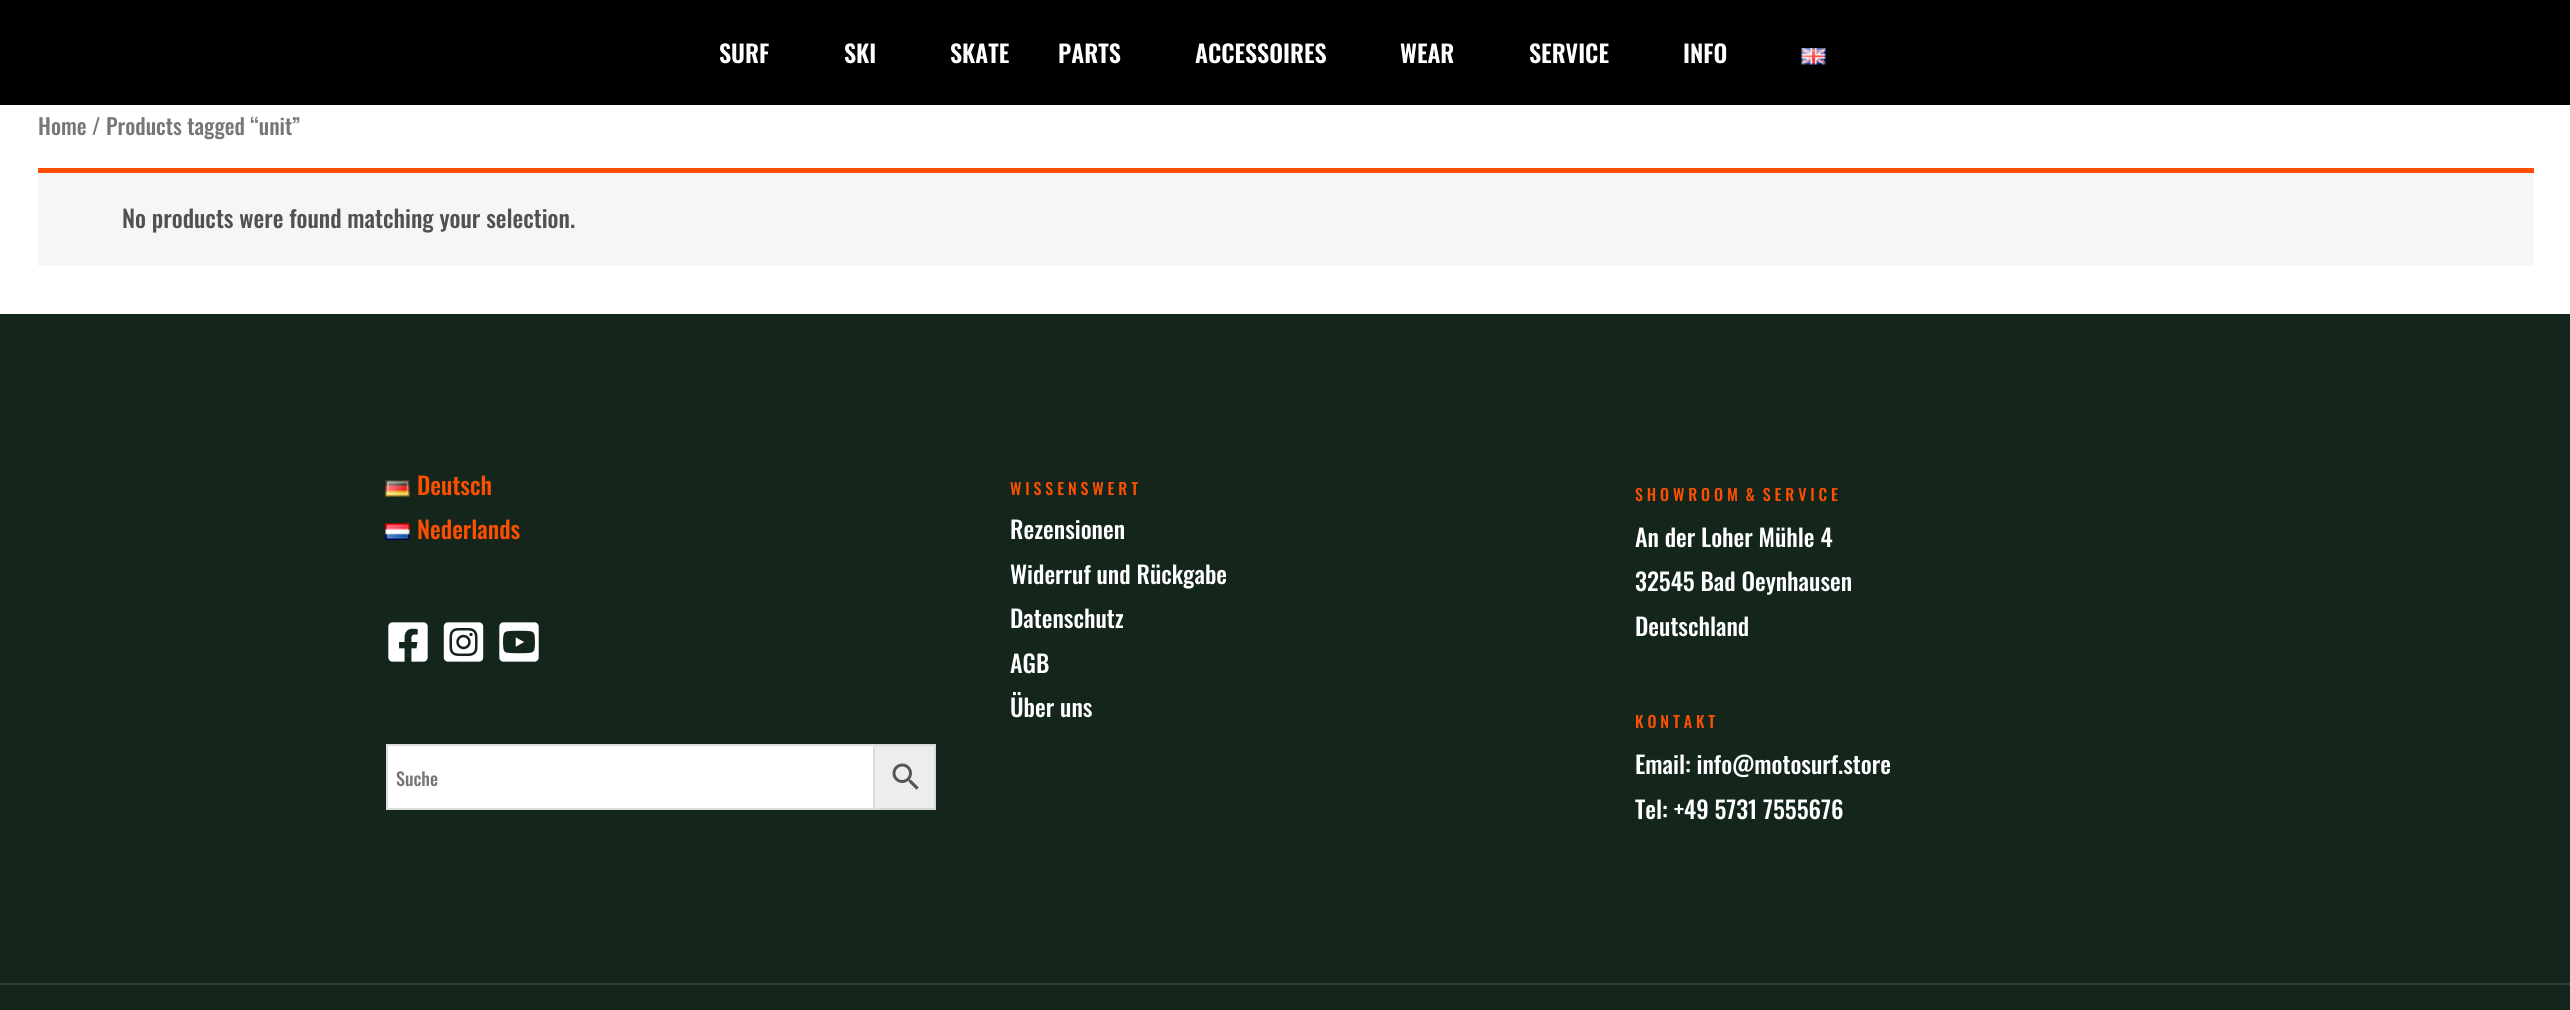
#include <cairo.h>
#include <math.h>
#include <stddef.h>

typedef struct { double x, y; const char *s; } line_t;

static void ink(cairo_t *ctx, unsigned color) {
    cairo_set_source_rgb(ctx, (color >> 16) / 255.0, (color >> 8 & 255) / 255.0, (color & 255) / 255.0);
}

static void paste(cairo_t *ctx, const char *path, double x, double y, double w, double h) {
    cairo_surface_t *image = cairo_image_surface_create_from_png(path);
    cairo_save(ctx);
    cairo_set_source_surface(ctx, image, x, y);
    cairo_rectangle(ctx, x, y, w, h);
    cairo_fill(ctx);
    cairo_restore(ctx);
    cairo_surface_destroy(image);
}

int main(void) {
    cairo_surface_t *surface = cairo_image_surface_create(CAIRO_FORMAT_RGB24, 2570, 1010);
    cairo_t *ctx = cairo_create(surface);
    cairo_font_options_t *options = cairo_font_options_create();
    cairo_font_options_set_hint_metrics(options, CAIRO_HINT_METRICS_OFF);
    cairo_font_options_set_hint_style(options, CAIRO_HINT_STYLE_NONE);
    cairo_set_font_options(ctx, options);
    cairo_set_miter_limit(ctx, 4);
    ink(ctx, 0xFFFFFF);
    cairo_paint(ctx);
    ink(ctx, 0x000000);
    cairo_rectangle(ctx, 0, 0, 2570, 105);
    cairo_fill(ctx);
    cairo_select_font_face(ctx, "Oswald SemiBold", CAIRO_FONT_SLANT_NORMAL, CAIRO_FONT_WEIGHT_NORMAL);
    cairo_set_font_size(ctx, 24);
    ink(ctx, 0xFFFFFF);
    {
        static const line_t items[] = {
            {719, 63, "SURF"},
            {844, 63, "SKI"},
            {950, 63, "SKATE"},
            {1058, 63, "PARTS"},
            {1195, 63, "ACCESSOIRES"},
            {1400, 63, "WEAR"},
            {1529, 63, "SERVICE"},
            {1683, 63, "INFO"},
        };
        for (size_t i = 0; i < sizeof items / sizeof *items; i++) {
            cairo_move_to(ctx, items[i].x, items[i].y);
            cairo_show_text(ctx, items[i].s);
        }
    }
    paste(ctx, "media/1.png", 1801, 48, 25, 17);
    cairo_select_font_face(ctx, "Oswald Medium", CAIRO_FONT_SLANT_NORMAL, CAIRO_FONT_WEIGHT_NORMAL);
    cairo_set_font_size(ctx, 22);
    ink(ctx, 0x777777);
    cairo_move_to(ctx, 38, 135);
    cairo_show_text(ctx, "Home / Products tagged “unit”");
    ink(ctx, 0xF7F6F7);
    cairo_rectangle(ctx, 38, 173, 2496, 93);
    cairo_fill(ctx);
    ink(ctx, 0xFC5000);
    cairo_rectangle(ctx, 38, 168, 2496, 5);
    cairo_fill(ctx);
    cairo_set_font_size(ctx, 24);
    ink(ctx, 0x515151);
    cairo_move_to(ctx, 122, 228);
    cairo_show_text(ctx, "No products were found matching your selection.");
    ink(ctx, 0x14261C);
    cairo_rectangle(ctx, 0, 314, 2570, 669);
    cairo_fill(ctx);
    paste(ctx, "media/2.png", 385, 480, 25, 17);
    ink(ctx, 0xFC5000);
    cairo_move_to(ctx, 417, 495);
    cairo_show_text(ctx, "Deutsch");
    paste(ctx, "media/3.png", 385, 523, 25, 17);
    cairo_move_to(ctx, 417, 539);
    cairo_show_text(ctx, "Nederlands");
    paste(ctx, "media/4.png", 388, 622, 40, 40);
    paste(ctx, "media/5.png", 443, 622, 41, 40);
    paste(ctx, "media/6.png", 499, 622, 40, 40);
    ink(ctx, 0xEDEDED);
    cairo_rectangle(ctx, 874, 745, 61, 64);
    cairo_fill_preserve(ctx);
    ink(ctx, 0xD8D8D8);
    cairo_stroke(ctx);
    ink(ctx, 0xFFFFFF);
    cairo_rectangle(ctx, 387, 745, 487, 64);
    cairo_fill_preserve(ctx);
    ink(ctx, 0xDDDDDD);
    cairo_stroke(ctx);
    cairo_set_font_size(ctx, 18);
    ink(ctx, 0x777777);
    cairo_move_to(ctx, 396, 786);
    cairo_show_text(ctx, "Suche");
    paste(ctx, "media/7.png", 892, 763, 27, 27);
    cairo_set_font_size(ctx, 16);
    ink(ctx, 0xFC5000);
    cairo_move_to(ctx, 1010, 495);
    cairo_show_text(ctx, "W I S S E N S W E R T");
    cairo_set_font_size(ctx, 24);
    ink(ctx, 0xFFFFFF);
    {
        static const line_t items[] = {
            {1010, 539, "Rezensionen"},
            {1010, 584, "Widerruf und Rückgabe"},
            {1010, 628, "Datenschutz"},
            {1010, 673, "AGB"},
            {1010, 717, "Über uns"},
        };
        for (size_t i = 0; i < sizeof items / sizeof *items; i++) {
            cairo_move_to(ctx, items[i].x, items[i].y);
            cairo_show_text(ctx, items[i].s);
        }
    }
    cairo_set_font_size(ctx, 16);
    ink(ctx, 0xFC5000);
    cairo_move_to(ctx, 1635, 501);
    cairo_show_text(ctx, "S H O W R O O M  &  S E R V I C E");
    cairo_set_font_size(ctx, 24);
    ink(ctx, 0xFFFFFF);
    {
        static const line_t items[] = {
            {1635, 547, "An der Loher Mühle 4"},
            {1635, 591, "32545 Bad Oeynhausen"},
            {1635, 636, "Deutschland"},
        };
        for (size_t i = 0; i < sizeof items / sizeof *items; i++) {
            cairo_move_to(ctx, items[i].x, items[i].y);
            cairo_show_text(ctx, items[i].s);
        }
    }
    cairo_set_font_size(ctx, 16);
    ink(ctx, 0xFC5000);
    cairo_move_to(ctx, 1635, 728);
    cairo_show_text(ctx, "K O N T A K T");
    cairo_set_font_size(ctx, 24);
    ink(ctx, 0xFFFFFF);
    cairo_move_to(ctx, 1635, 774);
    cairo_show_text(ctx, "Email: info@motosurf.store");
    cairo_move_to(ctx, 1635, 819);
    cairo_show_text(ctx, "Tel: +49 5731 7555676");
    ink(ctx, 0x14261C);
    cairo_rectangle(ctx, 0, 985, 2570, 25);
    cairo_fill(ctx);
    ink(ctx, 0x2E3E35);
    cairo_rectangle(ctx, 0, 983, 2570, 2);
    cairo_fill(ctx);
    cairo_surface_write_to_png(surface, "image.png");
    cairo_font_options_destroy(options);
    cairo_destroy(ctx);
    cairo_surface_destroy(surface);
    return 0;
}
